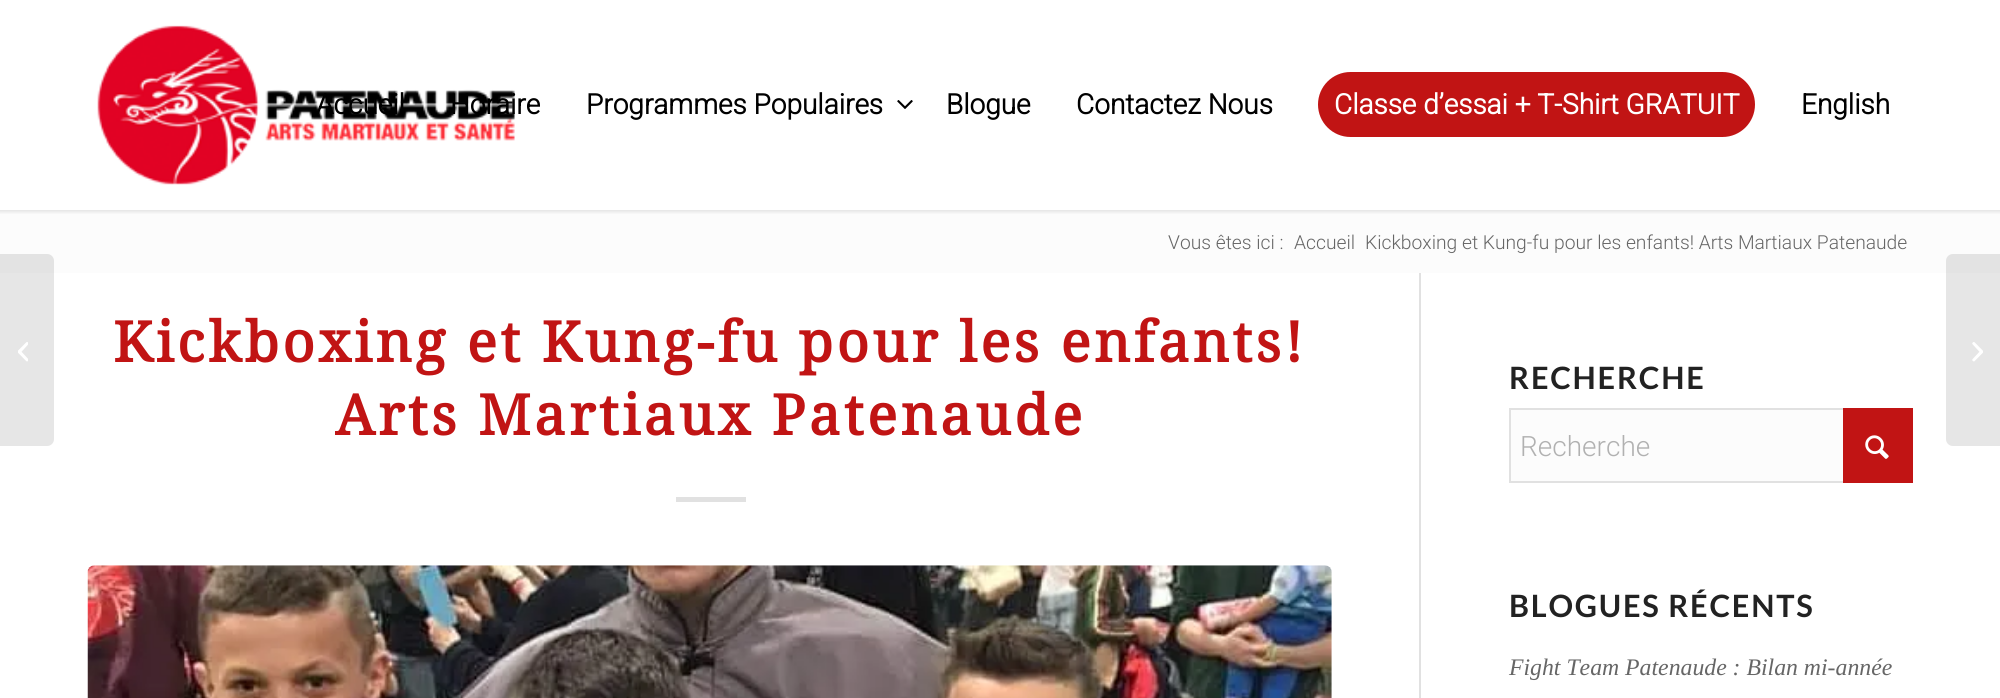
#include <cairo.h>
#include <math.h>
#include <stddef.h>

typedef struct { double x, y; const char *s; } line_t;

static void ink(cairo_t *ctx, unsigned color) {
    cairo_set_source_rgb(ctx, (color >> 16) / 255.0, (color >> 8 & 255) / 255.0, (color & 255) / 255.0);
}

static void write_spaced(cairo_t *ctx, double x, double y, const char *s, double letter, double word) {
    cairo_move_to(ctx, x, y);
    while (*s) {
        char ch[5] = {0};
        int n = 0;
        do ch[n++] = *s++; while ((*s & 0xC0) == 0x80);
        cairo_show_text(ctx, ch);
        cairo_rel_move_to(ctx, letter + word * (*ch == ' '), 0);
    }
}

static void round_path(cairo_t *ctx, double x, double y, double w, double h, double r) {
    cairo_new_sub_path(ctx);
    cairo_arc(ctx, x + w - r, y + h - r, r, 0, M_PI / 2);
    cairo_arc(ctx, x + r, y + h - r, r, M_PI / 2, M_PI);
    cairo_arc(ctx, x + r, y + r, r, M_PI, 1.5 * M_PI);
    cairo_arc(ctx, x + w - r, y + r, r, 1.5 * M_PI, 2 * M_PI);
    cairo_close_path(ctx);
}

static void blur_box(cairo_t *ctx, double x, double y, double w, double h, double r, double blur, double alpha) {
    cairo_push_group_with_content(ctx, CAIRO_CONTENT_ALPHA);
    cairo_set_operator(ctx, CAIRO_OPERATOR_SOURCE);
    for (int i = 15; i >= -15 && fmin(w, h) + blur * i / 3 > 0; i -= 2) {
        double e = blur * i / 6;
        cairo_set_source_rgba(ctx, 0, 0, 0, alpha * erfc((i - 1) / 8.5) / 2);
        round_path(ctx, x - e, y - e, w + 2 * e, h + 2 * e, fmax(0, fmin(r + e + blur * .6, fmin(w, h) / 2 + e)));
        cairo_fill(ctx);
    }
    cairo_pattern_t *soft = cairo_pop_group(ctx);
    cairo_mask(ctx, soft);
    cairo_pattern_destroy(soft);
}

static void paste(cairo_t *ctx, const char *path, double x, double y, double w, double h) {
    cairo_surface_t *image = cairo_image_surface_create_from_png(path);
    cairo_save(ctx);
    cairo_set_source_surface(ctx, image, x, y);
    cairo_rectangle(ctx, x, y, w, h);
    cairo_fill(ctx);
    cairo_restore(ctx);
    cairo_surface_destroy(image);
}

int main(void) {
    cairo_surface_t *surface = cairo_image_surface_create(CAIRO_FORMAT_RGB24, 2000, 698);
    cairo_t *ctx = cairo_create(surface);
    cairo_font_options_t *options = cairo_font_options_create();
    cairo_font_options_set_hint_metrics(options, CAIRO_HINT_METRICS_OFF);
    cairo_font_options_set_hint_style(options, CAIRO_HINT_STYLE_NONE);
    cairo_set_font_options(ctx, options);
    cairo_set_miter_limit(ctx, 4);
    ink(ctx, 0xFFFFFF);
    cairo_paint(ctx);
    ink(ctx, 0xFCFCFC);
    cairo_rectangle(ctx, 0, 210, 2000, 63);
    cairo_fill(ctx);
    cairo_save(ctx);
    cairo_rectangle(ctx, 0, 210, 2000, 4);
    cairo_clip(ctx);
    ink(ctx, 0x000000);
    blur_box(ctx, -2, -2, 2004, 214, 0, 2, 0.1);
    cairo_restore(ctx);
    paste(ctx, "media/1.png", 97, 25, 418, 160);
    cairo_select_font_face(ctx, "Roboto", CAIRO_FONT_SLANT_NORMAL, CAIRO_FONT_WEIGHT_BOLD);
    cairo_set_font_size(ctx, 28);
    ink(ctx, 0x000000);
    {
        static const line_t items[] = {
            {316, 114, "Accueil"},
            {450, 114, "Horaire"},
            {586, 114, "Programmes Populaires"},
        };
        for (size_t i = 0; i < sizeof items / sizeof *items; i++) {
            cairo_move_to(ctx, items[i].x, items[i].y);
            cairo_show_text(ctx, items[i].s);
        }
    }
    paste(ctx, "media/2.png", 897, 100, 16, 9);
    cairo_move_to(ctx, 946, 114);
    cairo_show_text(ctx, "Blogue");
    cairo_move_to(ctx, 1076, 114);
    cairo_show_text(ctx, "Contactez Nous");
    ink(ctx, 0xC11414);
    round_path(ctx, 1318, 72, 437, 65, 32.5);
    cairo_fill(ctx);
    ink(ctx, 0xFFFFFF);
    cairo_move_to(ctx, 1334, 114);
    cairo_show_text(ctx, "Classe d’essai + T-Shirt GRATUIT");
    ink(ctx, 0x000000);
    cairo_move_to(ctx, 1801, 114);
    cairo_show_text(ctx, "English");
    cairo_set_source_rgba(ctx, 0, 0, 0, 0.1);
    cairo_new_path(ctx);
    cairo_move_to(ctx, 0, 254);
    cairo_line_to(ctx, 47, 254);
    cairo_curve_to(ctx, 51, 254, 54, 257, 54, 261);
    cairo_line_to(ctx, 54, 439);
    cairo_curve_to(ctx, 54, 443, 51, 446, 47, 446);
    cairo_line_to(ctx, 0, 446);
    cairo_close_path(ctx);
    cairo_fill(ctx);
    paste(ctx, "media/3.png", 18, 342, 10, 20);
    cairo_select_font_face(ctx, "Roboto Light", CAIRO_FONT_SLANT_NORMAL, CAIRO_FONT_WEIGHT_NORMAL);
    cairo_set_font_size(ctx, 19.25);
    ink(ctx, 0x666666);
    {
        static const line_t items[] = {
            {1168, 249, "Vous êtes ici :"},
            {1294, 249, "Accueil"},
            {1365, 249, "Kickboxing et Kung-fu pour les enfants! Arts Martiaux Patenaude"},
        };
        for (size_t i = 0; i < sizeof items / sizeof *items; i++) {
            cairo_move_to(ctx, items[i].x, items[i].y);
            cairo_show_text(ctx, items[i].s);
        }
    }
    ink(ctx, 0xE1E1E1);
    cairo_rectangle(ctx, 1419, 273, 2, 425);
    cairo_fill(ctx);
    cairo_select_font_face(ctx, "Droid Serif", CAIRO_FONT_SLANT_NORMAL, CAIRO_FONT_WEIGHT_BOLD);
    cairo_set_font_size(ctx, 56);
    ink(ctx, 0xC11414);
    write_spaced(ctx, 113, 362, "Kickboxing et Kung-fu pour les enfants!", 3.5, 0);
    write_spaced(ctx, 335, 435, "Arts Martiaux Patenaude", 3.5, 0);
    ink(ctx, 0xE1E1E1);
    cairo_rectangle(ctx, 676, 497, 70, 5);
    cairo_fill(ctx);
    paste(ctx, "media/4.png", 87, 565, 1245, 133);
    cairo_select_font_face(ctx, "Lato", CAIRO_FONT_SLANT_NORMAL, CAIRO_FONT_WEIGHT_BOLD);
    cairo_set_font_size(ctx, 30.75);
    ink(ctx, 0x222222);
    write_spaced(ctx, 1509, 389, "RECHERCHE", 1.75, 0);
    ink(ctx, 0xFCFCFC);
    cairo_rectangle(ctx, 1511, 410, 332, 71);
    cairo_fill(ctx);
    cairo_rectangle(ctx, 1510, 409, 402, 73);
    ink(ctx, 0xE1E1E1);
    cairo_stroke(ctx);
    cairo_select_font_face(ctx, "Roboto Light", CAIRO_FONT_SLANT_NORMAL, CAIRO_FONT_WEIGHT_NORMAL);
    cairo_set_font_size(ctx, 28);
    ink(ctx, 0xB1B1B1);
    cairo_move_to(ctx, 1520, 456);
    cairo_show_text(ctx, "Recherche");
    ink(ctx, 0xC11414);
    cairo_rectangle(ctx, 1843, 408, 70, 75);
    cairo_fill(ctx);
    paste(ctx, "media/5.png", 1865, 435, 24, 24);
    cairo_select_font_face(ctx, "Lato", CAIRO_FONT_SLANT_NORMAL, CAIRO_FONT_WEIGHT_BOLD);
    cairo_set_font_size(ctx, 30.75);
    ink(ctx, 0x222222);
    write_spaced(ctx, 1509, 617, "BLOGUES RÉCENTS", 1.75, 0);
    cairo_select_font_face(ctx, "Liberation Serif", CAIRO_FONT_SLANT_ITALIC, CAIRO_FONT_WEIGHT_NORMAL);
    cairo_set_font_size(ctx, 23.75);
    ink(ctx, 0x666666);
    cairo_move_to(ctx, 1509, 675);
    cairo_show_text(ctx, "Fight Team Patenaude : Bilan mi-année");
    cairo_set_source_rgba(ctx, 0, 0, 0, 0.1);
    cairo_new_path(ctx);
    cairo_move_to(ctx, 1953, 254);
    cairo_line_to(ctx, 2000, 254);
    cairo_line_to(ctx, 2000, 446);
    cairo_line_to(ctx, 1953, 446);
    cairo_curve_to(ctx, 1949, 446, 1946, 443, 1946, 439);
    cairo_line_to(ctx, 1946, 261);
    cairo_curve_to(ctx, 1946, 257, 1949, 254, 1953, 254);
    cairo_close_path(ctx);
    cairo_fill(ctx);
    paste(ctx, "media/6.png", 1972, 342, 11, 20);
    cairo_surface_write_to_png(surface, "image.png");
    cairo_font_options_destroy(options);
    cairo_destroy(ctx);
    cairo_surface_destroy(surface);
    return 0;
}
